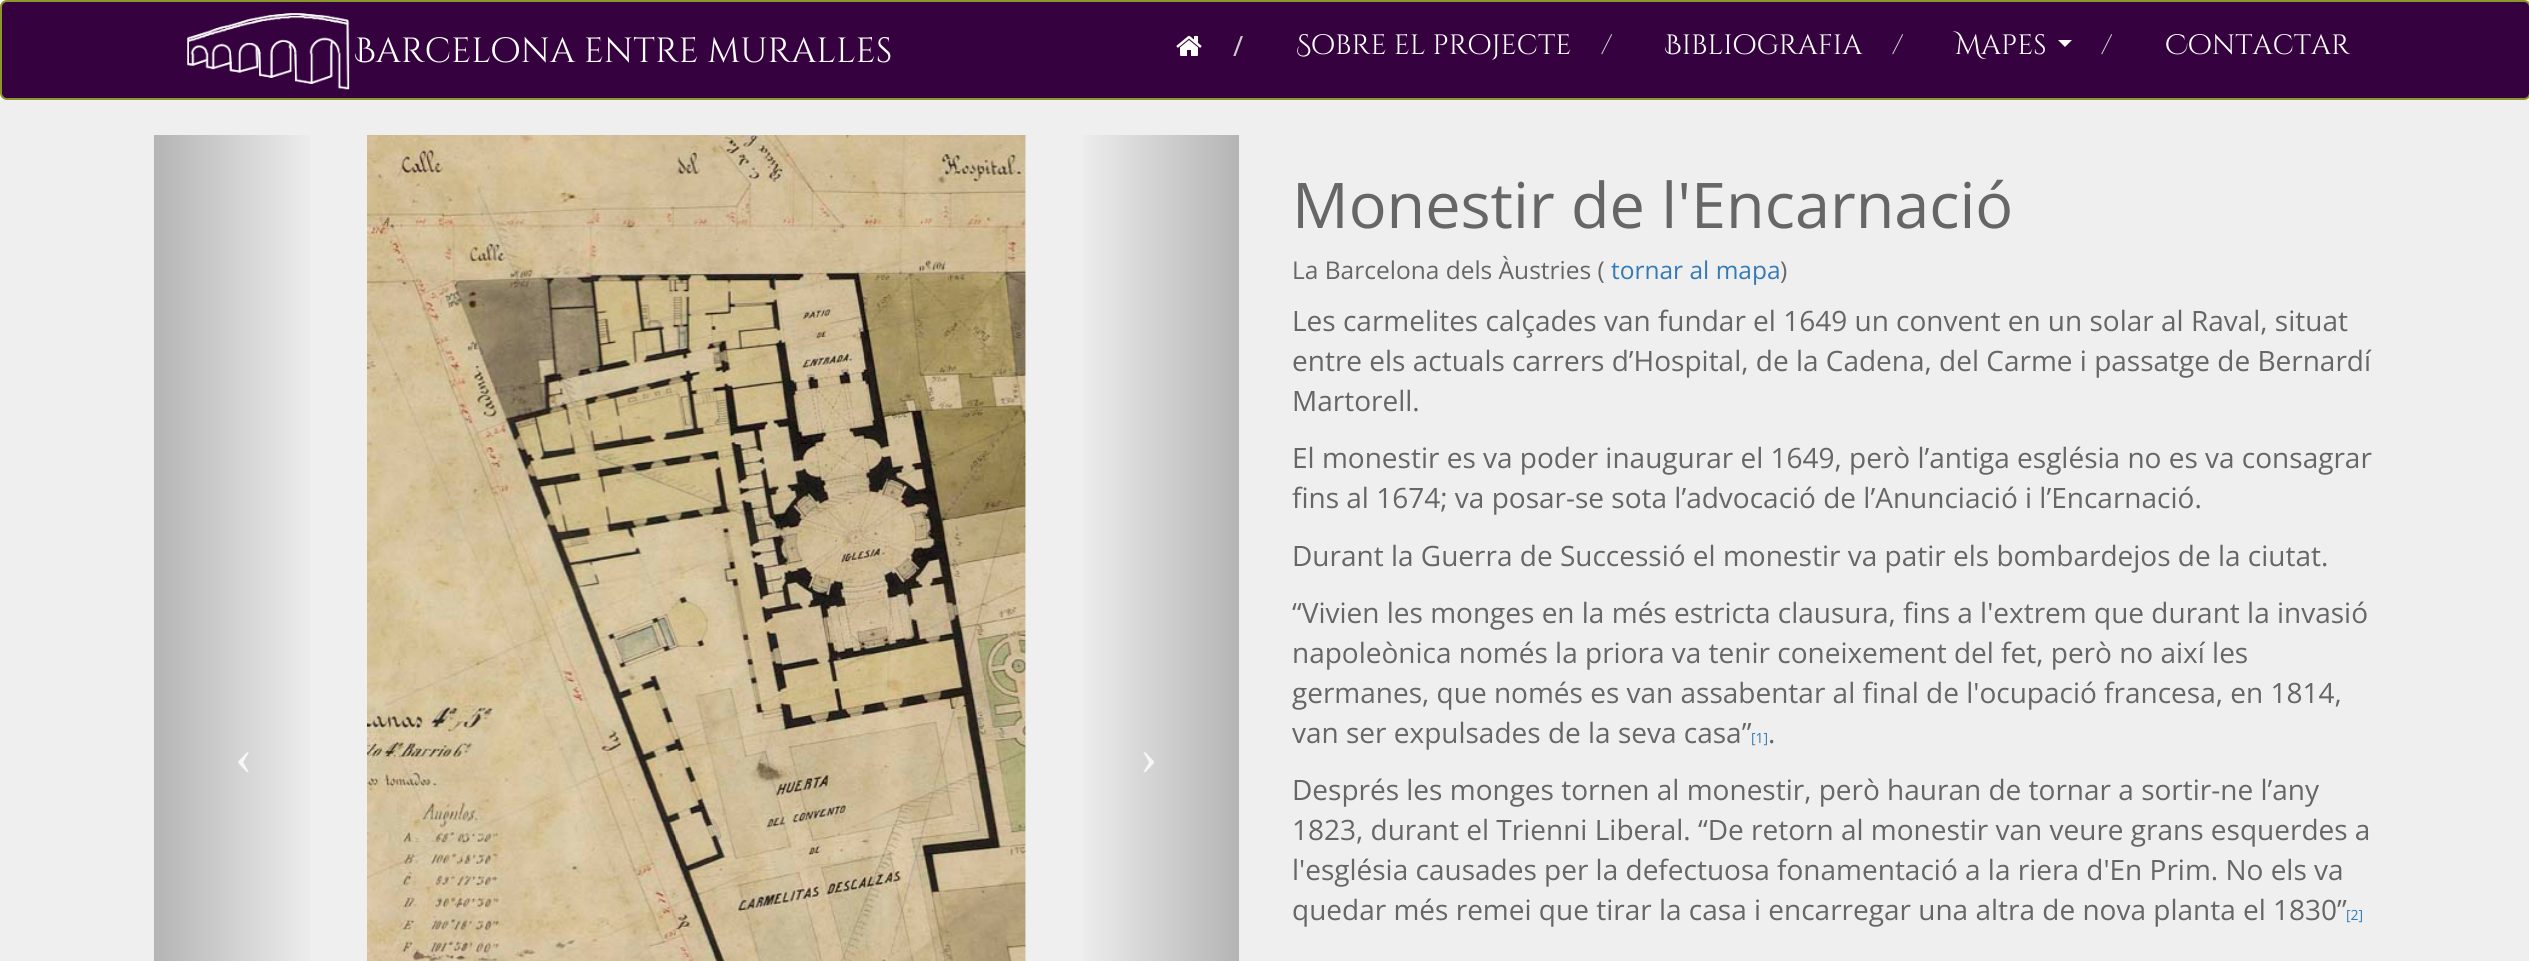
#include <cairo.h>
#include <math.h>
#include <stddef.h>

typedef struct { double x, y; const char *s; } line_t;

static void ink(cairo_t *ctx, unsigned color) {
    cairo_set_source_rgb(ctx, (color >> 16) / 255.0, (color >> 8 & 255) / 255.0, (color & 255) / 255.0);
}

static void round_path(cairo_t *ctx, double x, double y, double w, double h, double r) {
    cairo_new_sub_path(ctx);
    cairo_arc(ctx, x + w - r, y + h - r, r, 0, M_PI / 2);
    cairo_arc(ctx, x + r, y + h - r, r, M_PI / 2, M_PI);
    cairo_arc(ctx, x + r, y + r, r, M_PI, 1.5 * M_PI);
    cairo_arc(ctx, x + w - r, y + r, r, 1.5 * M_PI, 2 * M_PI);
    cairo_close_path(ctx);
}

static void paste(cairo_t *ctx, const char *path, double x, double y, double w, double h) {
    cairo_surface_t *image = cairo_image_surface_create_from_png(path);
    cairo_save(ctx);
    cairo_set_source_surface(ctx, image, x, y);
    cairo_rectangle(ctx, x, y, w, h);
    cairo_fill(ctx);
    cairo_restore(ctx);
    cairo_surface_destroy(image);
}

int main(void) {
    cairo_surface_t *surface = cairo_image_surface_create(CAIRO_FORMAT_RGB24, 2529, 961);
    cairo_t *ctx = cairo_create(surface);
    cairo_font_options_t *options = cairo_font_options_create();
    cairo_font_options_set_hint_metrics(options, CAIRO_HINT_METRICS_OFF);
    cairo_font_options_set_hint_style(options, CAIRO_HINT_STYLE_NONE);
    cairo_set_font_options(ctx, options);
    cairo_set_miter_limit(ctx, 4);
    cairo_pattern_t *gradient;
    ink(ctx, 0xEFEFEF);
    cairo_paint(ctx);
    ink(ctx, 0xFFFFFF);
    cairo_rectangle(ctx, 0, 0, 2529, 100);
    cairo_fill(ctx);
    ink(ctx, 0x35013F);
    round_path(ctx, 1, 1, 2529, 98, 6);
    cairo_fill_preserve(ctx);
    ink(ctx, 0x8B972C);
    cairo_stroke(ctx);
    paste(ctx, "media/1.png", 187, 13, 163, 77);
    cairo_select_font_face(ctx, "Cinzel Decorative", CAIRO_FONT_SLANT_NORMAL, CAIRO_FONT_WEIGHT_NORMAL);
    cairo_set_font_size(ctx, 35);
    ink(ctx, 0xFFFFFF);
    cairo_move_to(ctx, 355, 62);
    cairo_show_text(ctx, "Barcelona entre muralles");
    paste(ctx, "media/2.png", 1176, 36, 26, 20);
    cairo_select_font_face(ctx, "Open Sans", CAIRO_FONT_SLANT_NORMAL, CAIRO_FONT_WEIGHT_NORMAL);
    cairo_set_font_size(ctx, 28);
    ink(ctx, 0xCCCCCC);
    cairo_move_to(ctx, 1233, 56);
    cairo_show_text(ctx, "/");
    cairo_select_font_face(ctx, "Cinzel Decorative", CAIRO_FONT_SLANT_NORMAL, CAIRO_FONT_WEIGHT_NORMAL);
    ink(ctx, 0xFFFFFF);
    cairo_move_to(ctx, 1296, 54);
    cairo_show_text(ctx, "Sobre el projecte");
    ink(ctx, 0xCCCCCC);
    cairo_move_to(ctx, 1601, 54);
    cairo_show_text(ctx, "/");
    ink(ctx, 0xFFFFFF);
    cairo_move_to(ctx, 1665, 54);
    cairo_show_text(ctx, "Bibliografia");
    ink(ctx, 0xCCCCCC);
    cairo_move_to(ctx, 1892, 54);
    cairo_show_text(ctx, "/");
    ink(ctx, 0xFFFFFF);
    cairo_move_to(ctx, 1955, 54);
    cairo_show_text(ctx, "Mapes");
    cairo_new_path(ctx);
    cairo_move_to(ctx, 2058, 40);
    cairo_line_to(ctx, 2072, 40);
    cairo_line_to(ctx, 2065, 47);
    cairo_close_path(ctx);
    cairo_fill(ctx);
    ink(ctx, 0xCCCCCC);
    cairo_move_to(ctx, 2101, 54);
    cairo_show_text(ctx, "/");
    ink(ctx, 0xFFFFFF);
    cairo_move_to(ctx, 2165, 54);
    cairo_show_text(ctx, "Contactar");
    gradient = cairo_pattern_create_linear(154, 747, 317, 747);
    cairo_pattern_add_color_stop_rgba(gradient, 0, 0.706, 0.706, 0.706, 1);
    cairo_pattern_add_color_stop_rgba(gradient, 1, 0.937, 0.937, 0.937, 1);
    cairo_set_source(ctx, gradient);
    cairo_pattern_destroy(gradient);
    cairo_rectangle(ctx, 154, 135, 156, 826);
    cairo_fill(ctx);
    cairo_select_font_face(ctx, "Liberation Serif", CAIRO_FONT_SLANT_NORMAL, CAIRO_FONT_WEIGHT_NORMAL);
    cairo_set_font_size(ctx, 52);
    ink(ctx, 0xF7F7F7);
    cairo_move_to(ctx, 235, 774);
    cairo_show_text(ctx, "‹");
    paste(ctx, "media/3.png", 367, 135, 659, 826);
    gradient = cairo_pattern_create_linear(1076, 747, 1239, 747);
    cairo_pattern_add_color_stop_rgba(gradient, 0, 0.937, 0.937, 0.937, 1);
    cairo_pattern_add_color_stop_rgba(gradient, 1, 0.706, 0.706, 0.706, 1);
    cairo_set_source(ctx, gradient);
    cairo_pattern_destroy(gradient);
    cairo_rectangle(ctx, 1083, 135, 156, 826);
    cairo_fill(ctx);
    ink(ctx, 0xF7F7F7);
    cairo_move_to(ctx, 1140, 774);
    cairo_show_text(ctx, "›");
    cairo_select_font_face(ctx, "Open Sans", CAIRO_FONT_SLANT_NORMAL, CAIRO_FONT_WEIGHT_NORMAL);
    cairo_set_font_size(ctx, 63);
    ink(ctx, 0x666666);
    cairo_move_to(ctx, 1292, 228);
    cairo_show_text(ctx, "Monestir de l'Encarnació");
    cairo_set_font_size(ctx, 24.5);
    cairo_move_to(ctx, 1292, 279);
    cairo_show_text(ctx, "La Barcelona dels Àustries (");
    ink(ctx, 0x337AB7);
    cairo_move_to(ctx, 1611, 279);
    cairo_show_text(ctx, "tornar al mapa");
    ink(ctx, 0x666666);
    cairo_move_to(ctx, 1780, 279);
    cairo_show_text(ctx, ")");
    cairo_set_font_size(ctx, 28);
    {
        static const line_t items[] = {
            {1292, 331, "Les carmelites calçades van fundar el 1649 un convent en un solar al Raval, situat"},
            {1292, 371, "entre els actuals carrers d’Hospital, de la Cadena, del Carme i passatge de Bernardí"},
            {1292, 411, "Martorell."},
            {1292, 468, "El monestir es va poder inaugurar el 1649, però l’antiga església no es va consagrar"},
            {1292, 508, "fins al 1674; va posar-se sota l’advocació de l’Anunciació i l’Encarnació."},
            {1292, 566, "Durant la Guerra de Successió el monestir va patir els bombardejos de la ciutat."},
            {1292, 623, "“Vivien les monges en la més estricta clausura, fins a l'extrem que durant la invasió"},
            {1292, 663, "napoleònica només la priora va tenir coneixement del fet, però no així les"},
            {1292, 703, "germanes, que només es van assabentar al final de l'ocupació francesa, en 1814,"},
            {1292, 743, "van ser expulsades de la seva casa”"},
        };
        for (size_t i = 0; i < sizeof items / sizeof *items; i++) {
            cairo_move_to(ctx, items[i].x, items[i].y);
            cairo_show_text(ctx, items[i].s);
        }
    }
    cairo_set_font_size(ctx, 14);
    ink(ctx, 0x337AB7);
    cairo_move_to(ctx, 1751, 743);
    cairo_show_text(ctx, "[1]");
    cairo_set_font_size(ctx, 28);
    ink(ctx, 0x666666);
    {
        static const line_t items[] = {
            {1768, 743, "."},
            {1292, 800, "Després les monges tornen al monestir, però hauran de tornar a sortir-ne l’any"},
            {1292, 840, "1823, durant el Trienni Liberal. “De retorn al monestir van veure grans esquerdes a"},
            {1292, 880, "l'església causades per la defectuosa fonamentació a la riera d'En Prim. No els va"},
            {1292, 920, "quedar més remei que tirar la casa i encarregar una altra de nova planta el 1830”"},
        };
        for (size_t i = 0; i < sizeof items / sizeof *items; i++) {
            cairo_move_to(ctx, items[i].x, items[i].y);
            cairo_show_text(ctx, items[i].s);
        }
    }
    cairo_set_font_size(ctx, 14);
    ink(ctx, 0x337AB7);
    cairo_move_to(ctx, 2346, 920);
    cairo_show_text(ctx, "[2]");
    cairo_surface_write_to_png(surface, "image.png");
    cairo_font_options_destroy(options);
    cairo_destroy(ctx);
    cairo_surface_destroy(surface);
    return 0;
}
